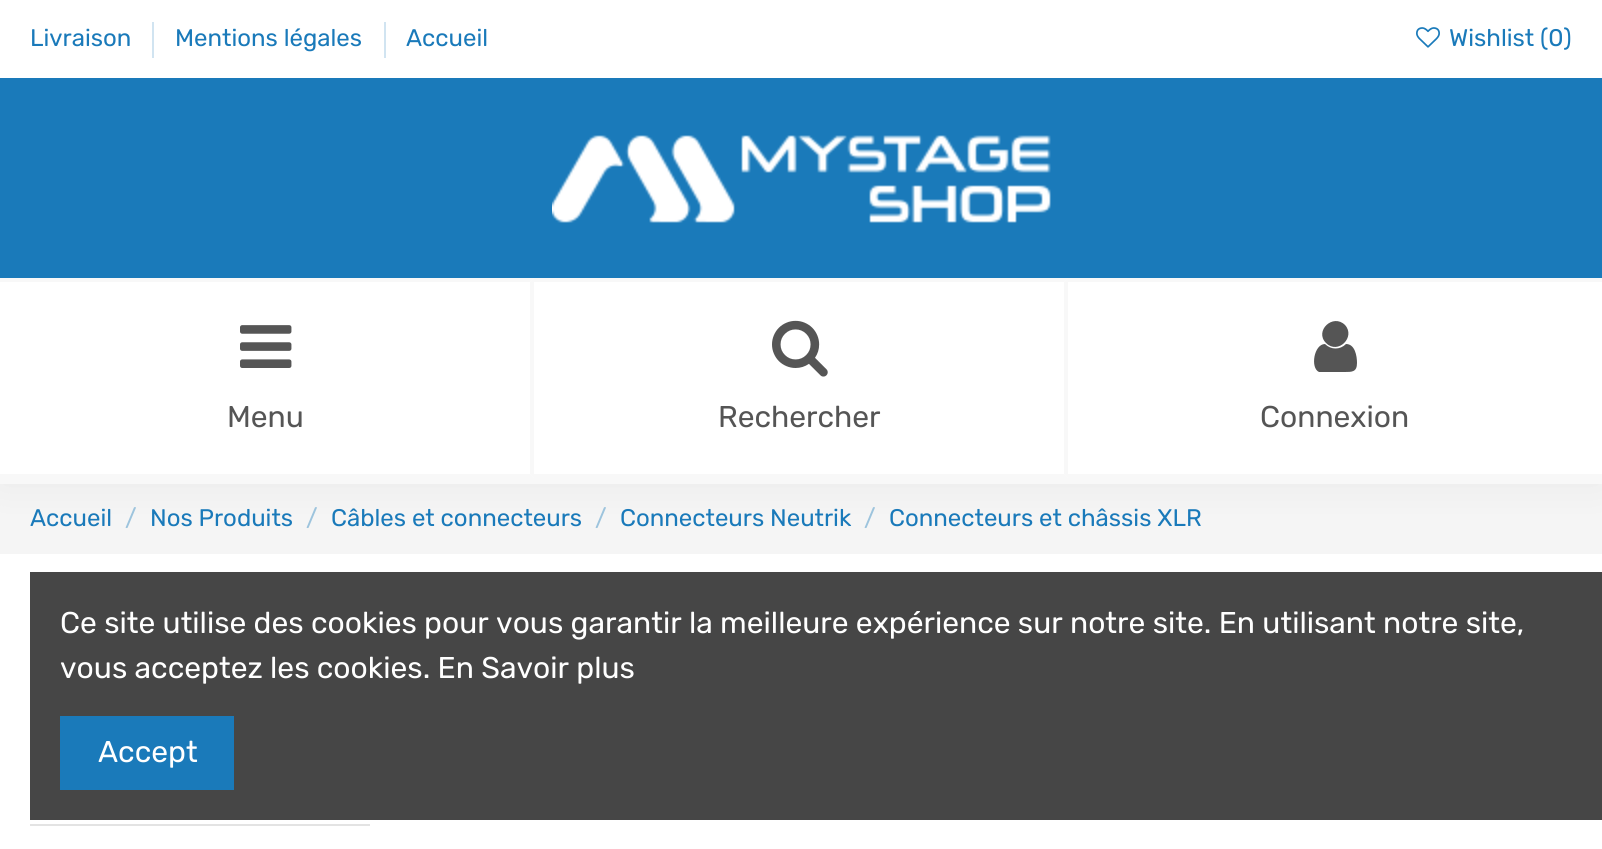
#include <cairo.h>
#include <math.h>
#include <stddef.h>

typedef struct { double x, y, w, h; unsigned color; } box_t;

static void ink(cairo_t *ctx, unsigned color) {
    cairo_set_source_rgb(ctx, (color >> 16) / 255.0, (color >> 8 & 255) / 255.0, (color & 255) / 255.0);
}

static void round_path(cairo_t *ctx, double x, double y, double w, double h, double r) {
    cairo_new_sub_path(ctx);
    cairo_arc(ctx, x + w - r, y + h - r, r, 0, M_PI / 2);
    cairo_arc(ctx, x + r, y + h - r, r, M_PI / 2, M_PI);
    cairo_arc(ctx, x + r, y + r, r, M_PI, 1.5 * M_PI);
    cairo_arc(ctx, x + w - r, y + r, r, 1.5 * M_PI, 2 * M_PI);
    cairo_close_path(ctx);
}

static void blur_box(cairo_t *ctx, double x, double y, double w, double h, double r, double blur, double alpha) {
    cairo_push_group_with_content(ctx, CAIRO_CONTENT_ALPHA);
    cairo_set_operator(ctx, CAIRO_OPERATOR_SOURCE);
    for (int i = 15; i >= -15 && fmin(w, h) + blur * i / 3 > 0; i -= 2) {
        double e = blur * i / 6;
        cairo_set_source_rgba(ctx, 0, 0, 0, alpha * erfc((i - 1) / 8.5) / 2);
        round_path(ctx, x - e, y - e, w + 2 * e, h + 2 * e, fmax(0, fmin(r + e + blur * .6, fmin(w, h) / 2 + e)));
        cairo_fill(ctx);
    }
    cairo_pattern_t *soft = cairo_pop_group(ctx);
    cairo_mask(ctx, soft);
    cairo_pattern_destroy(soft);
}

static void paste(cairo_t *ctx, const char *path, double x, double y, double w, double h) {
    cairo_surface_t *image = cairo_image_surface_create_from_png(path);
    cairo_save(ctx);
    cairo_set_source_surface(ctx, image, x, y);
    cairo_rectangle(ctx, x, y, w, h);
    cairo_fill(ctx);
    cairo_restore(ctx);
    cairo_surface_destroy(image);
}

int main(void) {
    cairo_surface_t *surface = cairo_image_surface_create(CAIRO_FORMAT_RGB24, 1602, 849);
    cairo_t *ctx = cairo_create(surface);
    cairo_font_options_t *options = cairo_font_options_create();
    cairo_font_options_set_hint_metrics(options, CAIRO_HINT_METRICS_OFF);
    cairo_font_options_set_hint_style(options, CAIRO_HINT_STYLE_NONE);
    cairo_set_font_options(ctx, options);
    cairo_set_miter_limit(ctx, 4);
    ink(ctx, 0xFFFFFF);
    cairo_paint(ctx);
    ink(ctx, 0xF5F5F5);
    cairo_rectangle(ctx, 0, 484, 1602, 70);
    cairo_fill(ctx);
    ink(ctx, 0x000000);
    blur_box(ctx, 0, 0, 1602, 484, 0, 20, 0.05);
    {
        static const box_t items[] = {
            {0, 78, 1602, 200, 0x1A7ABA},
            {0, 478, 1602, 6, 0xF8F8F8},
            {0, 0, 1602, 78, 0xFFFFFF},
        };
        for (size_t i = 0; i < sizeof items / sizeof *items; i++) {
            ink(ctx, items[i].color);
            cairo_rectangle(ctx, items[i].x, items[i].y, items[i].w, items[i].h);
            cairo_fill(ctx);
        }
    }
    cairo_select_font_face(ctx, "Rubik", CAIRO_FONT_SLANT_NORMAL, CAIRO_FONT_WEIGHT_NORMAL);
    cairo_set_font_size(ctx, 24);
    ink(ctx, 0x1A7ABA);
    cairo_move_to(ctx, 30, 46);
    cairo_show_text(ctx, "Livraison");
    ink(ctx, 0xD1E4F1);
    cairo_rectangle(ctx, 152, 22, 2, 36);
    cairo_fill(ctx);
    ink(ctx, 0x1A7ABA);
    cairo_move_to(ctx, 175, 46);
    cairo_show_text(ctx, "Mentions légales");
    ink(ctx, 0xD1E4F1);
    cairo_rectangle(ctx, 384, 22, 2, 36);
    cairo_fill(ctx);
    ink(ctx, 0x1A7ABA);
    cairo_move_to(ctx, 406, 46);
    cairo_show_text(ctx, "Accueil");
    paste(ctx, "media/1.png", 1416, 27, 24, 21);
    cairo_move_to(ctx, 1449, 46);
    cairo_show_text(ctx, "Wishlist (0)");
    paste(ctx, "media/2.png", 552, 135, 499, 88);
    ink(ctx, 0xFFFFFF);
    cairo_rectangle(ctx, 0, 278, 1602, 200);
    cairo_fill(ctx);
    ink(ctx, 0xF8F8F8);
    cairo_new_path(ctx);
    cairo_move_to(ctx, 0, 278);
    cairo_line_to(ctx, 534, 278);
    cairo_line_to(ctx, 530, 282);
    cairo_line_to(ctx, 0, 282);
    cairo_close_path(ctx);
    cairo_fill(ctx);
    cairo_set_source_rgba(ctx, 0.91, 0.91, 0.91, 0.29);
    cairo_new_path(ctx);
    cairo_move_to(ctx, 534, 278);
    cairo_line_to(ctx, 534, 478);
    cairo_line_to(ctx, 530, 474);
    cairo_line_to(ctx, 530, 282);
    cairo_close_path(ctx);
    cairo_fill(ctx);
    cairo_new_path(ctx);
    cairo_move_to(ctx, 534, 478);
    cairo_line_to(ctx, 0, 478);
    cairo_line_to(ctx, 0, 474);
    cairo_line_to(ctx, 530, 474);
    cairo_close_path(ctx);
    cairo_fill(ctx);
    paste(ctx, "media/3.png", 240, 325, 52, 43);
    cairo_set_font_size(ctx, 30);
    ink(ctx, 0x555555);
    cairo_move_to(ctx, 227, 427);
    cairo_show_text(ctx, "Menu");
    ink(ctx, 0xF8F8F8);
    cairo_new_path(ctx);
    cairo_move_to(ctx, 534, 278);
    cairo_line_to(ctx, 1068, 278);
    cairo_line_to(ctx, 1064, 282);
    cairo_line_to(ctx, 534, 282);
    cairo_close_path(ctx);
    cairo_fill(ctx);
    cairo_set_source_rgba(ctx, 0.91, 0.91, 0.91, 0.29);
    cairo_new_path(ctx);
    cairo_move_to(ctx, 1068, 278);
    cairo_line_to(ctx, 1068, 478);
    cairo_line_to(ctx, 1064, 474);
    cairo_line_to(ctx, 1064, 282);
    cairo_close_path(ctx);
    cairo_fill(ctx);
    cairo_new_path(ctx);
    cairo_move_to(ctx, 1068, 478);
    cairo_line_to(ctx, 534, 478);
    cairo_line_to(ctx, 534, 474);
    cairo_line_to(ctx, 1064, 474);
    cairo_close_path(ctx);
    cairo_fill(ctx);
    paste(ctx, "media/4.png", 772, 320, 56, 57);
    ink(ctx, 0x555555);
    cairo_move_to(ctx, 718, 427);
    cairo_show_text(ctx, "Rechercher");
    ink(ctx, 0xF8F8F8);
    cairo_rectangle(ctx, 1068, 278, 534, 4);
    cairo_fill(ctx);
    cairo_rectangle(ctx, 1068, 474, 534, 4);
    cairo_fill(ctx);
    ink(ctx, 0x555555);
    cairo_new_path(ctx);
    cairo_move_to(ctx, 1357, 363);
    cairo_curve_to(ctx, 1357, 372, 1352, 372, 1345, 372);
    cairo_line_to(ctx, 1319, 372);
    cairo_curve_to(ctx, 1310, 368, 1314, 344, 1325, 344);
    cairo_curve_to(ctx, 1331, 350, 1340, 350, 1346, 344);
    cairo_curve_to(ctx, 1355, 344, 1357, 356, 1357, 363);
    cairo_close_path(ctx);
    cairo_move_to(ctx, 1345, 325);
    cairo_curve_to(ctx, 1356, 337, 1338, 355, 1326, 343);
    cairo_curve_to(ctx, 1314, 331, 1333, 313, 1345, 325);
    cairo_close_path(ctx);
    cairo_fill(ctx);
    cairo_move_to(ctx, 1260, 427);
    cairo_show_text(ctx, "Connexion");
    cairo_set_font_size(ctx, 24);
    ink(ctx, 0x1A7ABA);
    cairo_move_to(ctx, 30, 526);
    cairo_show_text(ctx, "Accueil");
    ink(ctx, 0x9DC4DD);
    cairo_move_to(ctx, 125, 526);
    cairo_show_text(ctx, "/");
    ink(ctx, 0x1A7ABA);
    cairo_move_to(ctx, 150, 526);
    cairo_show_text(ctx, "Nos Produits");
    ink(ctx, 0x9DC4DD);
    cairo_move_to(ctx, 306, 526);
    cairo_show_text(ctx, "/");
    ink(ctx, 0x1A7ABA);
    cairo_move_to(ctx, 331, 526);
    cairo_show_text(ctx, "Câbles et connecteurs");
    ink(ctx, 0x9DC4DD);
    cairo_move_to(ctx, 595, 526);
    cairo_show_text(ctx, "/");
    ink(ctx, 0x1A7ABA);
    cairo_move_to(ctx, 620, 526);
    cairo_show_text(ctx, "Connecteurs Neutrik");
    ink(ctx, 0x9DC4DD);
    cairo_move_to(ctx, 864, 526);
    cairo_show_text(ctx, "/");
    ink(ctx, 0x1A7ABA);
    cairo_move_to(ctx, 889, 526);
    cairo_show_text(ctx, "Connecteurs et châssis XLR");
    ink(ctx, 0xE3E3E3);
    cairo_rectangle(ctx, 30, 824, 340, 2);
    cairo_fill(ctx);
    ink(ctx, 0x464646);
    cairo_rectangle(ctx, 30, 572, 1572, 248);
    cairo_fill(ctx);
    cairo_set_font_size(ctx, 30);
    ink(ctx, 0xFFFFFF);
    cairo_move_to(ctx, 60, 633);
    cairo_show_text(ctx, "Ce site utilise des cookies pour vous garantir la meilleure expérience sur notre site. En utilisant notre site,");
    cairo_move_to(ctx, 60, 678);
    cairo_show_text(ctx, "vous acceptez les cookies. En Savoir plus");
    ink(ctx, 0x1A7ABA);
    cairo_rectangle(ctx, 60, 716, 174, 74);
    cairo_fill(ctx);
    ink(ctx, 0xFFFFFF);
    cairo_move_to(ctx, 98, 762);
    cairo_show_text(ctx, "Accept");
    cairo_surface_write_to_png(surface, "image.png");
    cairo_font_options_destroy(options);
    cairo_destroy(ctx);
    cairo_surface_destroy(surface);
    return 0;
}
